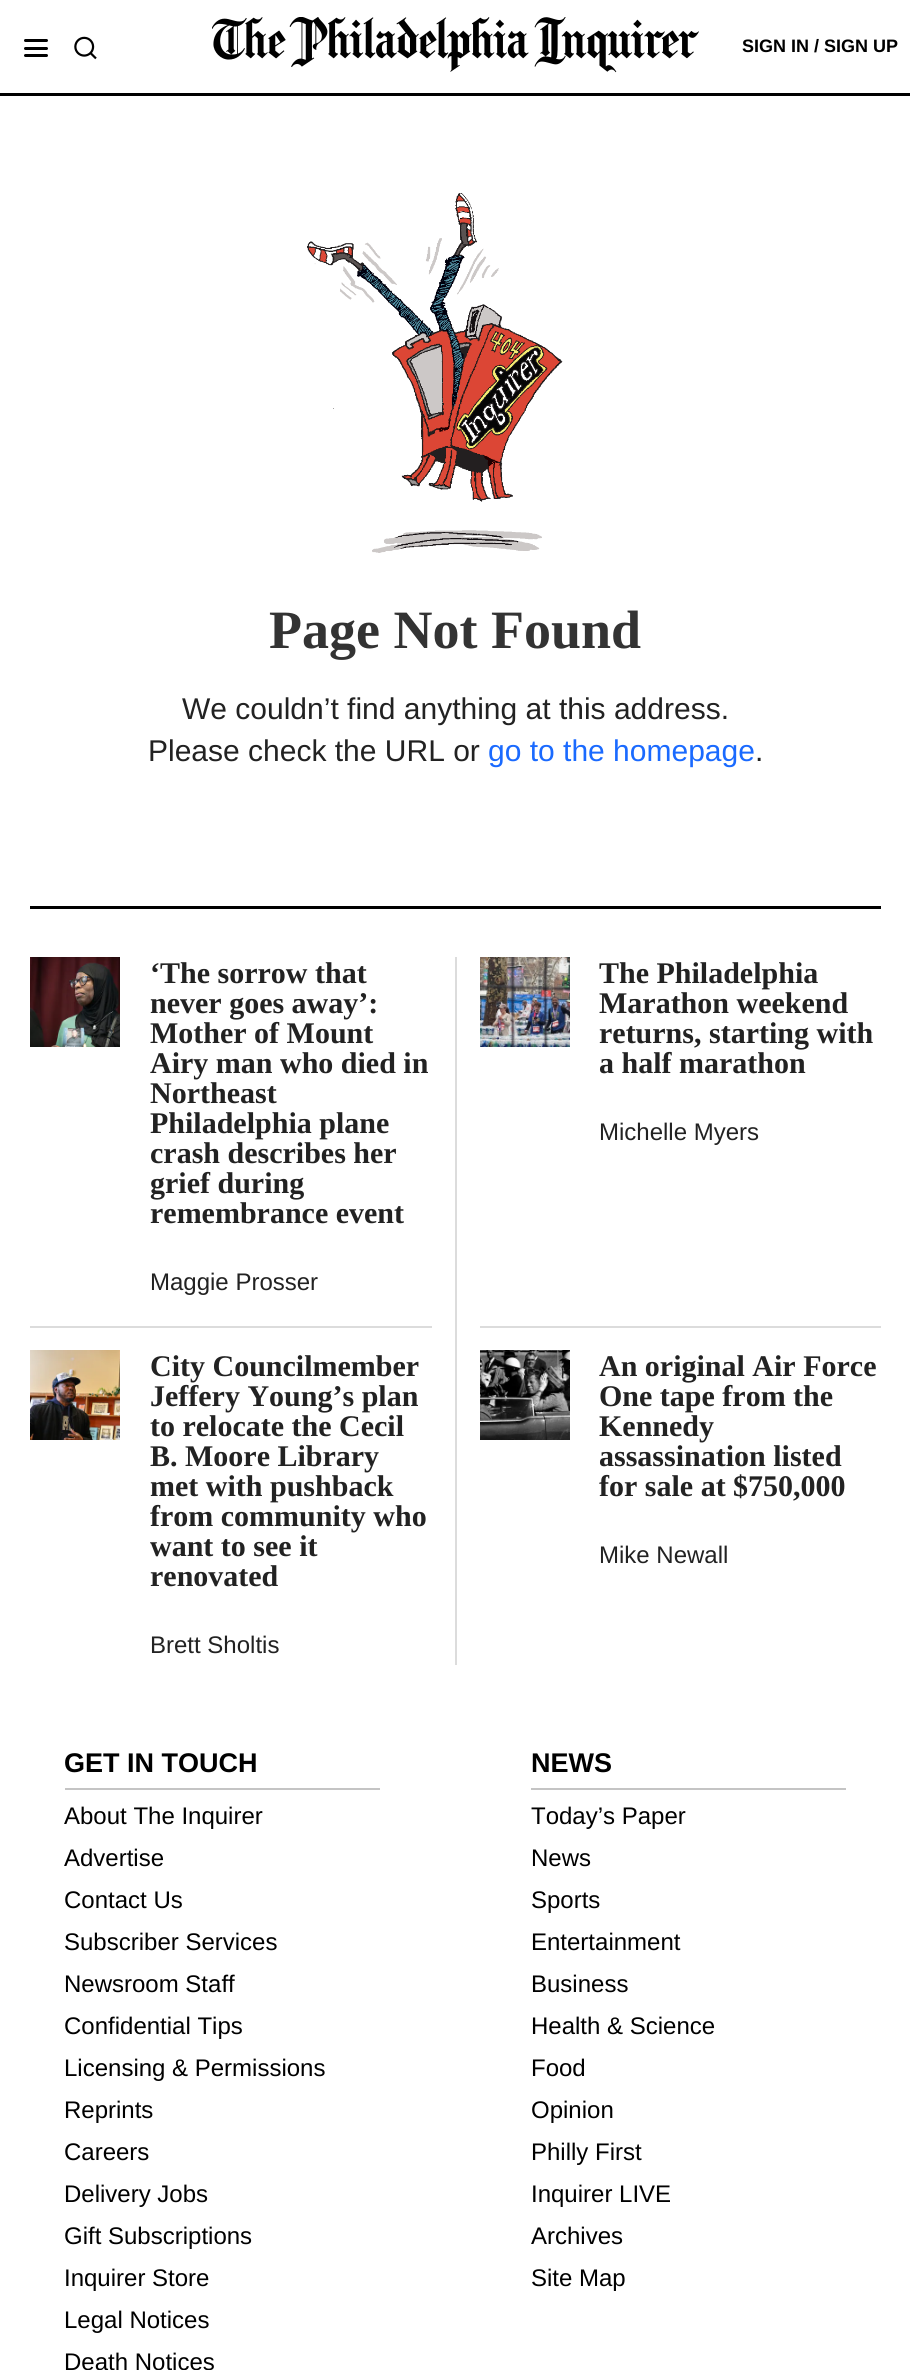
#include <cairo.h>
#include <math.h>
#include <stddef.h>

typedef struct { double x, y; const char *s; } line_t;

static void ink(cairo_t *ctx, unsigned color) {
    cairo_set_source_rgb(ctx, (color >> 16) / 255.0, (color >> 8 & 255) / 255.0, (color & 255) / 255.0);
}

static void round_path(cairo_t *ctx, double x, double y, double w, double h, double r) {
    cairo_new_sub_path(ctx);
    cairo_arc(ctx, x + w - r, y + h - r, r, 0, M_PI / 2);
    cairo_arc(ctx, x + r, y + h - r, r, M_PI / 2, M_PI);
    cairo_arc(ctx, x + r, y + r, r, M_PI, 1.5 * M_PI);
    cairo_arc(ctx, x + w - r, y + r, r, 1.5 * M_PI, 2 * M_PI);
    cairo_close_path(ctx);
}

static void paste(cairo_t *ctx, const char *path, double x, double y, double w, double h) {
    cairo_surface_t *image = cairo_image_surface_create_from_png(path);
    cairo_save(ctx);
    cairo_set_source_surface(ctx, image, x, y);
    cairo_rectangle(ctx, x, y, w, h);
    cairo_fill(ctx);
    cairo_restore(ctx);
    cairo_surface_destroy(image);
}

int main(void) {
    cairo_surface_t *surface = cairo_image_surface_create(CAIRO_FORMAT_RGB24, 910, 2370);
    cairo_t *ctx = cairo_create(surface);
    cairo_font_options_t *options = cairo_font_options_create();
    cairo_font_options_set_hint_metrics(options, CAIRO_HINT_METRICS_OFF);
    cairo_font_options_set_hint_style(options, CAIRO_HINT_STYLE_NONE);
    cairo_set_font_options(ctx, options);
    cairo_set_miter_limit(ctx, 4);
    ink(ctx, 0xFFFFFF);
    cairo_paint(ctx);
    ink(ctx, 0x000000);
    cairo_rectangle(ctx, 0, 93, 910, 3);
    cairo_fill(ctx);
    round_path(ctx, 24, 47, 24, 3, 1.5);
    cairo_fill(ctx);
    round_path(ctx, 24, 39, 24, 3, 1.5);
    cairo_fill(ctx);
    round_path(ctx, 24, 54, 24, 3, 1.5);
    cairo_fill(ctx);
    paste(ctx, "media/1.png", 74, 36, 23, 24);
    paste(ctx, "media/2.png", 212, 17, 487, 56);
    cairo_select_font_face(ctx, "Liberation Sans", CAIRO_FONT_SLANT_NORMAL, CAIRO_FONT_WEIGHT_BOLD);
    cairo_set_font_size(ctx, 18);
    cairo_move_to(ctx, 742, 52);
    cairo_show_text(ctx, "SIGN IN / SIGN UP");
    paste(ctx, "media/3.png", 307, 193, 256, 360);
    cairo_select_font_face(ctx, "Liberation Serif", CAIRO_FONT_SLANT_NORMAL, CAIRO_FONT_WEIGHT_BOLD);
    cairo_set_font_size(ctx, 54);
    ink(ctx, 0x333333);
    cairo_move_to(ctx, 269, 648);
    cairo_show_text(ctx, "Page Not Found");
    cairo_select_font_face(ctx, "Liberation Sans", CAIRO_FONT_SLANT_NORMAL, CAIRO_FONT_WEIGHT_NORMAL);
    cairo_set_font_size(ctx, 30);
    ink(ctx, 0x222222);
    cairo_move_to(ctx, 182, 719);
    cairo_show_text(ctx, "We couldn’t find anything at this address.");
    cairo_move_to(ctx, 148, 761);
    cairo_show_text(ctx, "Please check the URL or");
    ink(ctx, 0x1A6AFF);
    cairo_move_to(ctx, 488, 761);
    cairo_show_text(ctx, "go to the homepage");
    ink(ctx, 0x222222);
    cairo_move_to(ctx, 755, 761);
    cairo_show_text(ctx, ".");
    ink(ctx, 0x000000);
    cairo_rectangle(ctx, 30, 906, 851, 3);
    cairo_fill(ctx);
    paste(ctx, "media/4.png", 30, 957, 90, 90);
    cairo_select_font_face(ctx, "Liberation Serif", CAIRO_FONT_SLANT_NORMAL, CAIRO_FONT_WEIGHT_BOLD);
    ink(ctx, 0x222222);
    {
        static const line_t items[] = {
            {150, 983, "‘The sorrow that"},
            {150, 1013, "never goes away’:"},
            {150, 1043, "Mother of Mount"},
            {150, 1073, "Airy man who died in"},
            {150, 1103, "Northeast"},
            {150, 1133, "Philadelphia plane"},
            {150, 1163, "crash describes her"},
            {150, 1193, "grief during"},
            {150, 1223, "remembrance event"},
        };
        for (size_t i = 0; i < sizeof items / sizeof *items; i++) {
            cairo_move_to(ctx, items[i].x, items[i].y);
            cairo_show_text(ctx, items[i].s);
        }
    }
    cairo_select_font_face(ctx, "Liberation Sans", CAIRO_FONT_SLANT_NORMAL, CAIRO_FONT_WEIGHT_NORMAL);
    cairo_set_font_size(ctx, 24);
    cairo_move_to(ctx, 150, 1290);
    cairo_show_text(ctx, "Maggie Prosser");
    ink(ctx, 0xDCDCDC);
    cairo_rectangle(ctx, 455, 957, 2, 708);
    cairo_fill(ctx);
    paste(ctx, "media/5.png", 480, 957, 90, 90);
    cairo_select_font_face(ctx, "Liberation Serif", CAIRO_FONT_SLANT_NORMAL, CAIRO_FONT_WEIGHT_BOLD);
    cairo_set_font_size(ctx, 30);
    ink(ctx, 0x222222);
    {
        static const line_t items[] = {
            {599, 983, "The Philadelphia"},
            {599, 1013, "Marathon weekend"},
            {599, 1043, "returns, starting with"},
            {599, 1073, "a half marathon"},
        };
        for (size_t i = 0; i < sizeof items / sizeof *items; i++) {
            cairo_move_to(ctx, items[i].x, items[i].y);
            cairo_show_text(ctx, items[i].s);
        }
    }
    cairo_select_font_face(ctx, "Liberation Sans", CAIRO_FONT_SLANT_NORMAL, CAIRO_FONT_WEIGHT_NORMAL);
    cairo_set_font_size(ctx, 24);
    cairo_move_to(ctx, 599, 1140);
    cairo_show_text(ctx, "Michelle Myers");
    ink(ctx, 0xDCDCDC);
    cairo_rectangle(ctx, 30, 1326, 402, 2);
    cairo_fill(ctx);
    paste(ctx, "media/6.png", 30, 1350, 90, 90);
    cairo_select_font_face(ctx, "Liberation Serif", CAIRO_FONT_SLANT_NORMAL, CAIRO_FONT_WEIGHT_BOLD);
    cairo_set_font_size(ctx, 30);
    ink(ctx, 0x222222);
    {
        static const line_t items[] = {
            {150, 1376, "City Councilmember"},
            {150, 1406, "Jeffery Young’s plan"},
            {150, 1436, "to relocate the Cecil"},
            {150, 1466, "B. Moore Library"},
            {150, 1496, "met with pushback"},
            {150, 1526, "from community who"},
            {150, 1556, "want to see it"},
            {150, 1586, "renovated"},
        };
        for (size_t i = 0; i < sizeof items / sizeof *items; i++) {
            cairo_move_to(ctx, items[i].x, items[i].y);
            cairo_show_text(ctx, items[i].s);
        }
    }
    cairo_select_font_face(ctx, "Liberation Sans", CAIRO_FONT_SLANT_NORMAL, CAIRO_FONT_WEIGHT_NORMAL);
    cairo_set_font_size(ctx, 24);
    cairo_move_to(ctx, 150, 1653);
    cairo_show_text(ctx, "Brett Sholtis");
    ink(ctx, 0xDCDCDC);
    cairo_rectangle(ctx, 480, 1326, 401, 2);
    cairo_fill(ctx);
    paste(ctx, "media/7.png", 480, 1350, 90, 90);
    cairo_select_font_face(ctx, "Liberation Serif", CAIRO_FONT_SLANT_NORMAL, CAIRO_FONT_WEIGHT_BOLD);
    cairo_set_font_size(ctx, 30);
    ink(ctx, 0x222222);
    {
        static const line_t items[] = {
            {599, 1376, "An original Air Force"},
            {599, 1406, "One tape from the"},
            {599, 1436, "Kennedy"},
            {599, 1466, "assassination listed"},
            {599, 1496, "for sale at $750,000"},
        };
        for (size_t i = 0; i < sizeof items / sizeof *items; i++) {
            cairo_move_to(ctx, items[i].x, items[i].y);
            cairo_show_text(ctx, items[i].s);
        }
    }
    cairo_select_font_face(ctx, "Liberation Sans", CAIRO_FONT_SLANT_NORMAL, CAIRO_FONT_WEIGHT_NORMAL);
    cairo_set_font_size(ctx, 24);
    cairo_move_to(ctx, 599, 1563);
    cairo_show_text(ctx, "Mike Newall");
    ink(ctx, 0xC4C4C4);
    cairo_rectangle(ctx, 65, 1788, 315, 2);
    cairo_fill(ctx);
    cairo_select_font_face(ctx, "Liberation Sans", CAIRO_FONT_SLANT_NORMAL, CAIRO_FONT_WEIGHT_BOLD);
    cairo_set_font_size(ctx, 27);
    ink(ctx, 0x000000);
    cairo_move_to(ctx, 64, 1772);
    cairo_show_text(ctx, "GET IN TOUCH");
    cairo_select_font_face(ctx, "Liberation Sans", CAIRO_FONT_SLANT_NORMAL, CAIRO_FONT_WEIGHT_NORMAL);
    cairo_set_font_size(ctx, 24);
    {
        static const line_t items[] = {
            {64, 1824, "About The Inquirer"},
            {64, 1866, "Advertise"},
            {64, 1908, "Contact Us"},
            {64, 1950, "Subscriber Services"},
            {64, 1992, "Newsroom Staff"},
            {64, 2034, "Confidential Tips"},
            {64, 2076, "Licensing & Permissions"},
            {64, 2118, "Reprints"},
            {64, 2160, "Careers"},
            {64, 2202, "Delivery Jobs"},
            {64, 2244, "Gift Subscriptions"},
            {64, 2286, "Inquirer Store"},
            {64, 2328, "Legal Notices"},
            {64, 2370, "Death Notices"},
        };
        for (size_t i = 0; i < sizeof items / sizeof *items; i++) {
            cairo_move_to(ctx, items[i].x, items[i].y);
            cairo_show_text(ctx, items[i].s);
        }
    }
    ink(ctx, 0xC4C4C4);
    cairo_rectangle(ctx, 531, 1788, 315, 2);
    cairo_fill(ctx);
    cairo_select_font_face(ctx, "Liberation Sans", CAIRO_FONT_SLANT_NORMAL, CAIRO_FONT_WEIGHT_BOLD);
    cairo_set_font_size(ctx, 27);
    ink(ctx, 0x000000);
    cairo_move_to(ctx, 531, 1772);
    cairo_show_text(ctx, "NEWS");
    cairo_select_font_face(ctx, "Liberation Sans", CAIRO_FONT_SLANT_NORMAL, CAIRO_FONT_WEIGHT_NORMAL);
    cairo_set_font_size(ctx, 24);
    {
        static const line_t items[] = {
            {531, 1824, "Today’s Paper"},
            {531, 1866, "News"},
            {531, 1908, "Sports"},
            {531, 1950, "Entertainment"},
            {531, 1992, "Business"},
            {531, 2034, "Health & Science"},
            {531, 2076, "Food"},
            {531, 2118, "Opinion"},
            {531, 2160, "Philly First"},
            {531, 2202, "Inquirer LIVE"},
            {531, 2244, "Archives"},
            {531, 2286, "Site Map"},
        };
        for (size_t i = 0; i < sizeof items / sizeof *items; i++) {
            cairo_move_to(ctx, items[i].x, items[i].y);
            cairo_show_text(ctx, items[i].s);
        }
    }
    cairo_surface_write_to_png(surface, "image.png");
    cairo_font_options_destroy(options);
    cairo_destroy(ctx);
    cairo_surface_destroy(surface);
    return 0;
}
